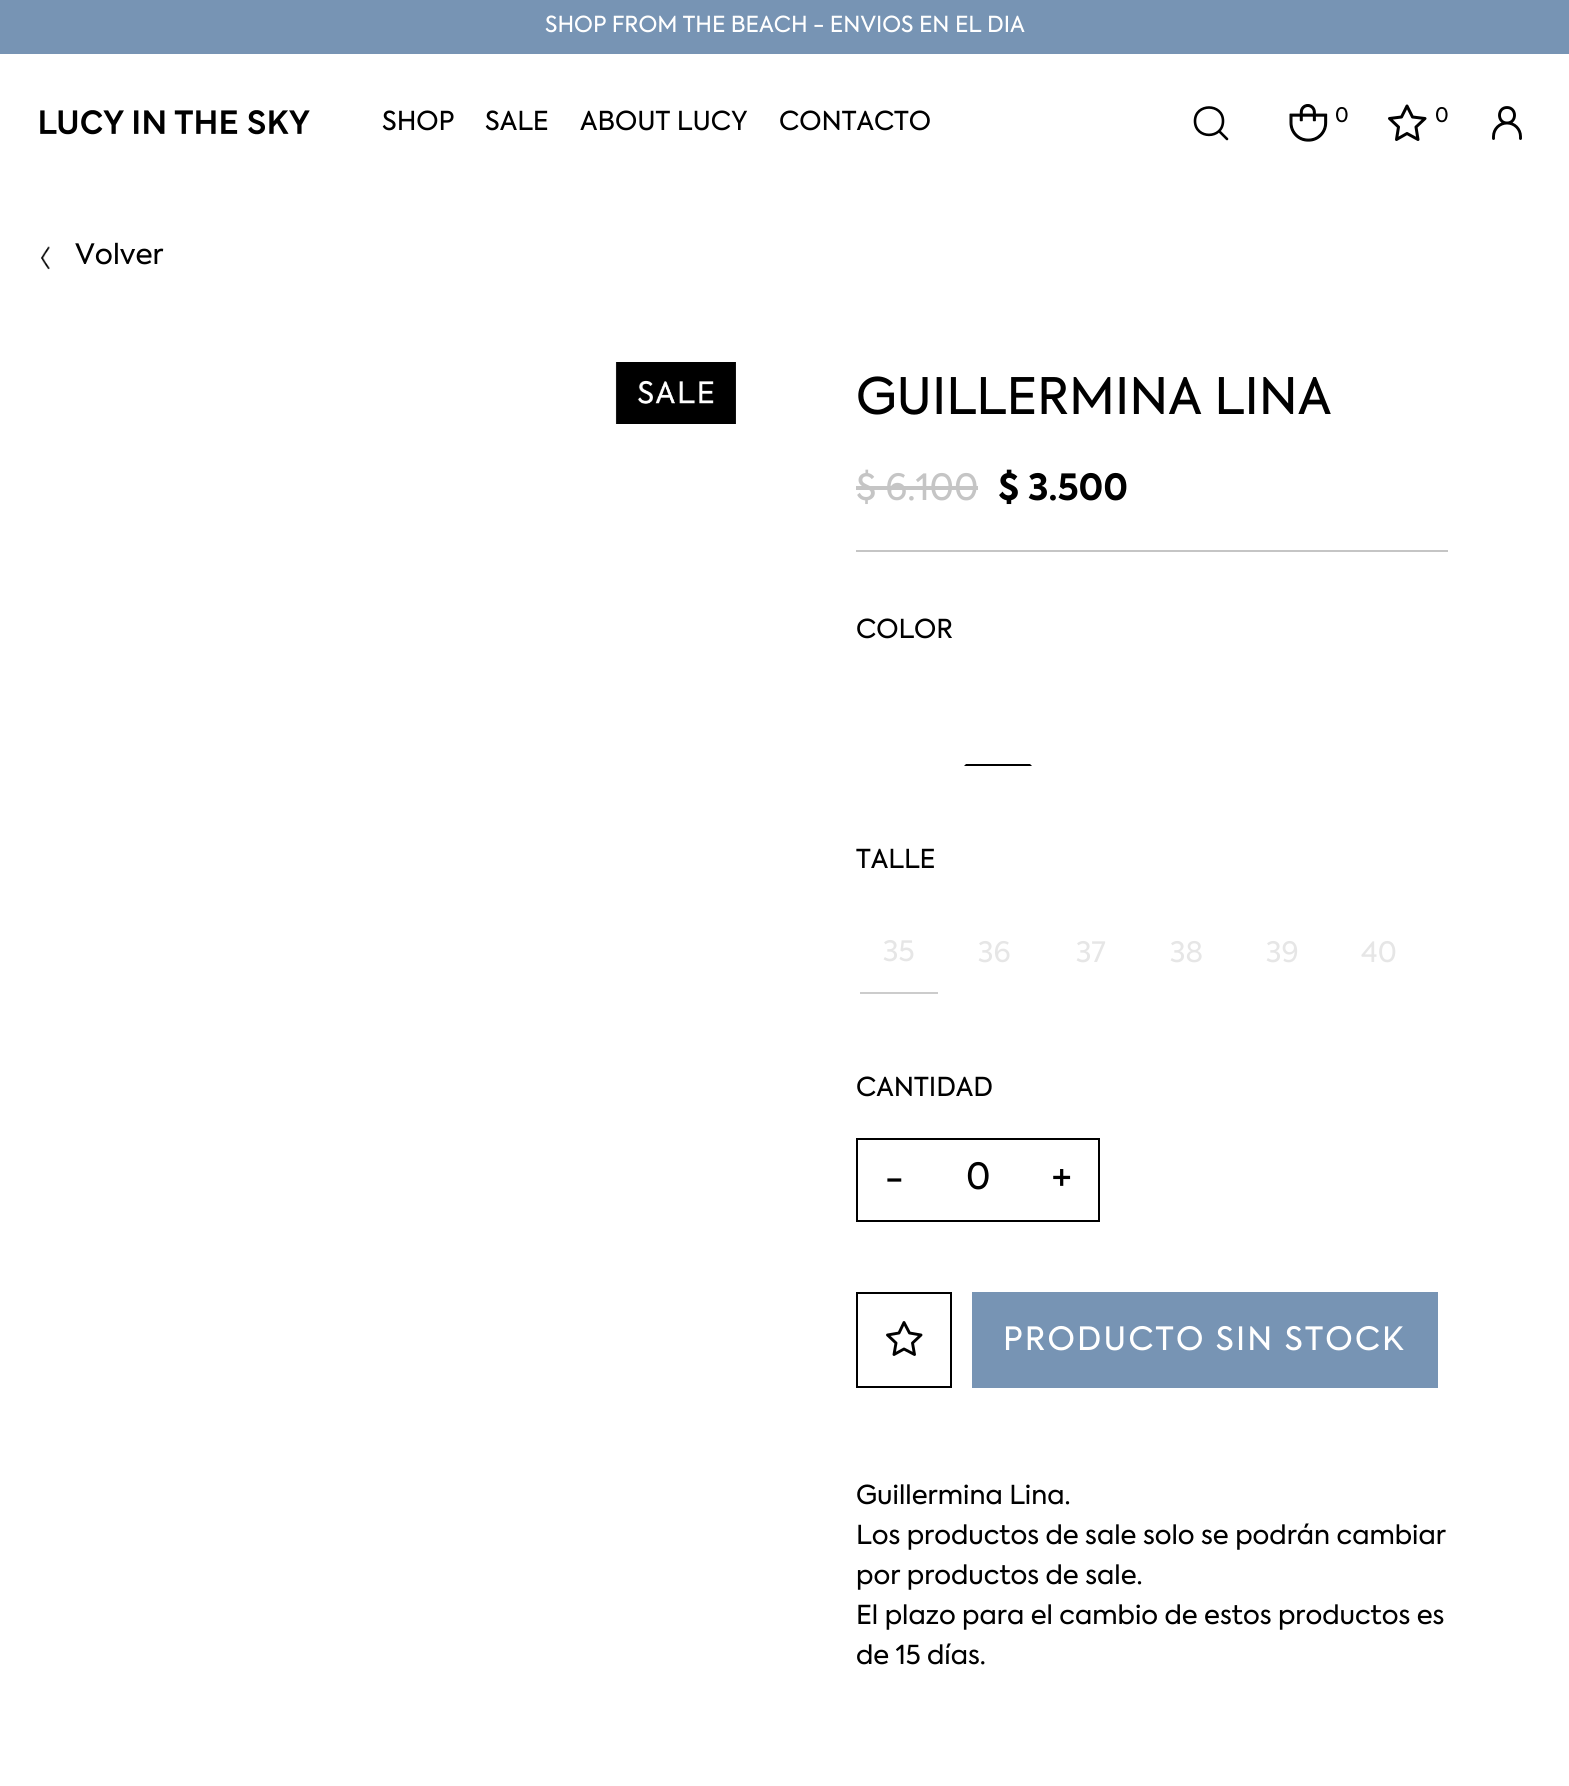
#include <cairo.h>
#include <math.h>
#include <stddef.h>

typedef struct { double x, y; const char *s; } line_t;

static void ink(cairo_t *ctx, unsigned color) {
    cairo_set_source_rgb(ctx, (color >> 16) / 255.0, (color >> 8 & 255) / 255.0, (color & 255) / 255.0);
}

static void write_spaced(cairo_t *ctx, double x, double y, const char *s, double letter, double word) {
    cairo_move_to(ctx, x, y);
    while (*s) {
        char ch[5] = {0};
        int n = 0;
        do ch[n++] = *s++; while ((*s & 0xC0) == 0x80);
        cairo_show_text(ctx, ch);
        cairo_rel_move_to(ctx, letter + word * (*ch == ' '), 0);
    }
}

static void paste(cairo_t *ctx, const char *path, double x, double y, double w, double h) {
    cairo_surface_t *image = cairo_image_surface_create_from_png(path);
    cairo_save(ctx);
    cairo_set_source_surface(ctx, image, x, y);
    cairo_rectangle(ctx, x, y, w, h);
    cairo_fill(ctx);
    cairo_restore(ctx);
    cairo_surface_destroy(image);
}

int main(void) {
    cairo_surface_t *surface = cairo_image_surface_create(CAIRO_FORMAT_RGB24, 1569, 1786);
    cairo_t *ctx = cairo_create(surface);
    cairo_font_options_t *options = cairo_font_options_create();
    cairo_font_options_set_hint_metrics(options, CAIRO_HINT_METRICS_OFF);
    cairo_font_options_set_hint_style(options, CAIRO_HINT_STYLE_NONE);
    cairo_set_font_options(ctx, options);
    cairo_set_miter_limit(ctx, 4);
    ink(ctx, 0xFFFFFF);
    cairo_paint(ctx);
    ink(ctx, 0x7794B4);
    cairo_rectangle(ctx, 0, 0, 1569, 54);
    cairo_fill(ctx);
    cairo_select_font_face(ctx, "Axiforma", CAIRO_FONT_SLANT_NORMAL, CAIRO_FONT_WEIGHT_NORMAL);
    cairo_set_font_size(ctx, 22);
    ink(ctx, 0xFFFFFF);
    cairo_move_to(ctx, 545, 32);
    cairo_show_text(ctx, "SHOP FROM THE BEACH - ENVIOS EN EL DIA");
    paste(ctx, "media/1.png", 40, 110, 270, 25);
    cairo_set_font_size(ctx, 26);
    ink(ctx, 0x000000);
    {
        static const line_t items[] = {
            {382, 130, "SHOP"},
            {485, 130, "SALE"},
            {580, 130, "ABOUT LUCY"},
            {779, 130, "CONTACTO"},
        };
        for (size_t i = 0; i < sizeof items / sizeof *items; i++) {
            cairo_move_to(ctx, items[i].x, items[i].y);
            cairo_show_text(ctx, items[i].s);
        }
    }
    cairo_new_path(ctx);
    cairo_move_to(ctx, 1220, 132);
    cairo_line_to(ctx, 1227, 139);
    cairo_move_to(ctx, 1195, 121);
    cairo_curve_to(ctx, 1195, 139.5, 1223, 139.5, 1223, 121);
    cairo_curve_to(ctx, 1223, 103, 1195, 103, 1195, 121);
    cairo_close_path(ctx);
    cairo_set_line_width(ctx, 2.6);
    cairo_set_line_cap(ctx, CAIRO_LINE_CAP_ROUND);
    cairo_set_line_join(ctx, CAIRO_LINE_JOIN_ROUND);
    cairo_stroke(ctx);
    paste(ctx, "media/2.png", 1289, 104, 39, 38);
    cairo_set_font_size(ctx, 20);
    cairo_move_to(ctx, 1335, 122);
    cairo_show_text(ctx, "0");
    cairo_new_path(ctx);
    cairo_move_to(ctx, 1407, 133.5);
    cairo_line_to(ctx, 1396.5, 139.5);
    cairo_line_to(ctx, 1398.5, 127);
    cairo_line_to(ctx, 1389.5, 118.5);
    cairo_line_to(ctx, 1401.5, 117);
    cairo_line_to(ctx, 1407, 106);
    cairo_line_to(ctx, 1412.5, 117);
    cairo_line_to(ctx, 1425, 118.5);
    cairo_line_to(ctx, 1416, 127);
    cairo_line_to(ctx, 1418, 139.5);
    cairo_close_path(ctx);
    cairo_set_line_width(ctx, 3);
    cairo_stroke(ctx);
    cairo_move_to(ctx, 1435, 122);
    cairo_show_text(ctx, "0");
    cairo_new_path(ctx);
    cairo_move_to(ctx, 1493.5, 138.5);
    cairo_line_to(ctx, 1493.5, 136.5);
    cairo_curve_to(ctx, 1493.5, 129, 1499.5, 123, 1507, 123);
    cairo_curve_to(ctx, 1514.5, 123, 1520.5, 129, 1520.5, 136.5);
    cairo_line_to(ctx, 1520.5, 138.5);
    cairo_move_to(ctx, 1507, 123);
    cairo_curve_to(ctx, 1517, 123, 1517, 107.5, 1507, 107.5);
    cairo_curve_to(ctx, 1497, 107.5, 1497, 123, 1507, 123);
    cairo_close_path(ctx);
    cairo_set_line_width(ctx, 2.9);
    cairo_stroke(ctx);
    paste(ctx, "media/3.png", 41, 246, 9, 24);
    cairo_set_font_size(ctx, 28);
    cairo_move_to(ctx, 75, 264);
    cairo_show_text(ctx, "Volver");
    paste(ctx, "media/4.png", 615, 362, 121, 62);
    cairo_set_font_size(ctx, 50);
    cairo_move_to(ctx, 856, 414);
    cairo_show_text(ctx, "GUILLERMINA LINA");
    cairo_set_font_size(ctx, 36);
    ink(ctx, 0xC5C5C5);
    cairo_move_to(ctx, 856, 500);
    cairo_show_text(ctx, "$ 6.100");
    cairo_rectangle(ctx, 856, 486, 122, 4);
    cairo_fill(ctx);
    cairo_select_font_face(ctx, "Axiforma", CAIRO_FONT_SLANT_NORMAL, CAIRO_FONT_WEIGHT_BOLD);
    ink(ctx, 0x000000);
    cairo_move_to(ctx, 998, 500);
    cairo_show_text(ctx, "$ 3.500");
    ink(ctx, 0xC5C5C5);
    cairo_rectangle(ctx, 856, 550, 592, 2);
    cairo_fill(ctx);
    cairo_select_font_face(ctx, "Axiforma", CAIRO_FONT_SLANT_NORMAL, CAIRO_FONT_WEIGHT_NORMAL);
    cairo_set_font_size(ctx, 26);
    ink(ctx, 0x000000);
    cairo_move_to(ctx, 856, 638);
    cairo_show_text(ctx, "COLOR");
    cairo_new_path(ctx);
    cairo_move_to(ctx, 1032, 766);
    cairo_line_to(ctx, 964, 766);
    cairo_line_to(ctx, 966, 764);
    cairo_line_to(ctx, 1030, 764);
    cairo_close_path(ctx);
    cairo_fill(ctx);
    cairo_move_to(ctx, 856, 868);
    cairo_show_text(ctx, "TALLE");
    ink(ctx, 0xCCCCCC);
    cairo_rectangle(ctx, 860, 992, 78, 2);
    cairo_fill(ctx);
    cairo_set_font_size(ctx, 28);
    ink(ctx, 0xE6E6E6);
    {
        static const line_t items[] = {
            {883, 961, "35"},
            {978, 962, "36"},
            {1076, 962, "37"},
            {1170, 962, "38"},
            {1266, 962, "39"},
            {1361, 962, "40"},
        };
        for (size_t i = 0; i < sizeof items / sizeof *items; i++) {
            cairo_move_to(ctx, items[i].x, items[i].y);
            cairo_show_text(ctx, items[i].s);
        }
    }
    cairo_set_font_size(ctx, 26);
    ink(ctx, 0x000000);
    cairo_move_to(ctx, 856, 1096);
    cairo_show_text(ctx, "CANTIDAD");
    cairo_rectangle(ctx, 857, 1139, 242, 82);
    cairo_set_line_width(ctx, 2);
    cairo_set_line_cap(ctx, CAIRO_LINE_CAP_BUTT);
    cairo_set_line_join(ctx, CAIRO_LINE_JOIN_MITER);
    cairo_stroke(ctx);
    cairo_set_font_size(ctx, 36);
    {
        static const line_t items[] = {
            {885, 1190, "-"},
            {966, 1189, "0"},
            {1052, 1190, "+"},
        };
        for (size_t i = 0; i < sizeof items / sizeof *items; i++) {
            cairo_move_to(ctx, items[i].x, items[i].y);
            cairo_show_text(ctx, items[i].s);
        }
    }
    cairo_rectangle(ctx, 857, 1293, 94, 94);
    cairo_stroke(ctx);
    cairo_new_path(ctx);
    cairo_move_to(ctx, 904, 1349);
    cairo_line_to(ctx, 894, 1354.5);
    cairo_line_to(ctx, 896, 1343);
    cairo_line_to(ctx, 887.5, 1335);
    cairo_line_to(ctx, 899, 1333);
    cairo_line_to(ctx, 904, 1322.5);
    cairo_line_to(ctx, 909.5, 1333);
    cairo_line_to(ctx, 921, 1335);
    cairo_line_to(ctx, 912.5, 1343);
    cairo_line_to(ctx, 914.5, 1354.5);
    cairo_close_path(ctx);
    cairo_set_line_width(ctx, 2.9);
    cairo_set_line_cap(ctx, CAIRO_LINE_CAP_ROUND);
    cairo_set_line_join(ctx, CAIRO_LINE_JOIN_ROUND);
    cairo_stroke(ctx);
    ink(ctx, 0x7794B4);
    cairo_rectangle(ctx, 972, 1292, 466, 96);
    cairo_fill(ctx);
    cairo_set_font_size(ctx, 32);
    ink(ctx, 0xFFFFFF);
    write_spaced(ctx, 1003, 1350, "PRODUCTO SIN STOCK", 2.25, 0);
    cairo_set_font_size(ctx, 26);
    ink(ctx, 0x000000);
    {
        static const line_t items[] = {
            {856, 1504, "Guillermina Lina."},
            {856, 1544, "Los productos de sale solo se podrán cambiar"},
            {856, 1584, "por productos de sale."},
            {856, 1624, "El plazo para el cambio de estos productos es"},
            {856, 1664, "de 15 días."},
        };
        for (size_t i = 0; i < sizeof items / sizeof *items; i++) {
            cairo_move_to(ctx, items[i].x, items[i].y);
            cairo_show_text(ctx, items[i].s);
        }
    }
    cairo_surface_write_to_png(surface, "image.png");
    cairo_font_options_destroy(options);
    cairo_destroy(ctx);
    cairo_surface_destroy(surface);
    return 0;
}
